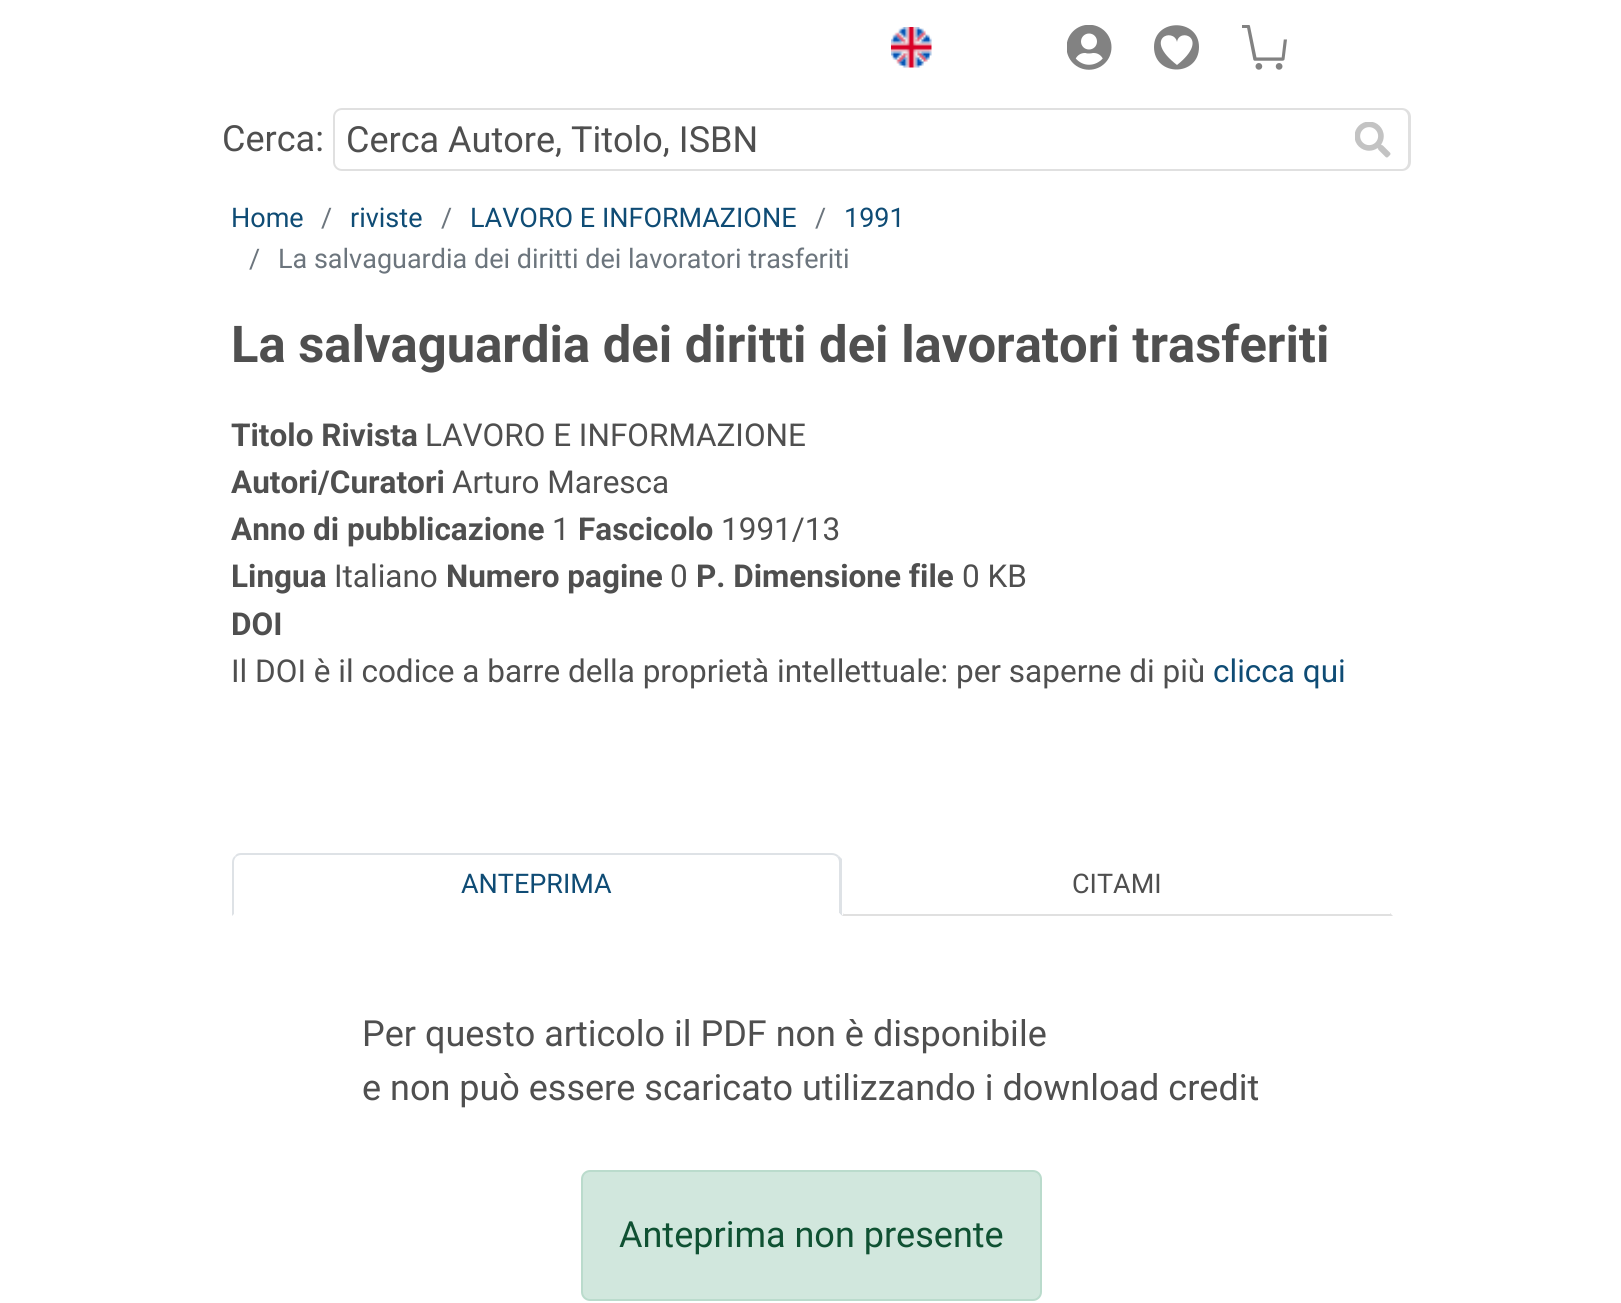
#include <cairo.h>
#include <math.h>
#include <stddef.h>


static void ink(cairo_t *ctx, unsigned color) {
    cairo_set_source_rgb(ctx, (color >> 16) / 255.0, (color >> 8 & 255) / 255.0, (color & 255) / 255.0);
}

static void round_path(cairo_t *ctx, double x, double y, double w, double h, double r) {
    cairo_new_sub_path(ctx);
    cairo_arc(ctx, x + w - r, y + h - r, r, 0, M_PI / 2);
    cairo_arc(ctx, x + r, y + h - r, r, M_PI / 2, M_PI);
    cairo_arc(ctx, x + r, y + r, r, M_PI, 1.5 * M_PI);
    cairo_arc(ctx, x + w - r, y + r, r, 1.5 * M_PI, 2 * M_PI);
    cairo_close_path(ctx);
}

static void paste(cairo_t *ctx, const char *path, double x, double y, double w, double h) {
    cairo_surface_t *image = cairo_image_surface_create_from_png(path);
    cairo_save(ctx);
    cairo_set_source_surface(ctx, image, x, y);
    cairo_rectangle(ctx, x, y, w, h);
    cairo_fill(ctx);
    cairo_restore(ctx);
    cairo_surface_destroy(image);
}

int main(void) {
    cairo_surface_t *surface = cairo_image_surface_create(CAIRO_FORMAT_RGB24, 1621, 1303);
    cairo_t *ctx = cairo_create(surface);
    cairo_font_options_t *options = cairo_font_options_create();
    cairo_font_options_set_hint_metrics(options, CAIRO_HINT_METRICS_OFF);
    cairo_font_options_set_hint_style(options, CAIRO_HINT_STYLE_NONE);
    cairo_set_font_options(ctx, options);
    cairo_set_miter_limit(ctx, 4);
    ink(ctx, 0xFFFFFF);
    cairo_paint(ctx);
    paste(ctx, "media/1.png", 891, 27, 41, 41);
    paste(ctx, "media/2.png", 1067, 25, 45, 45);
    ink(ctx, 0x828282);
    cairo_new_path(ctx);
    cairo_move_to(ctx, 1177, 65);
    cairo_curve_to(ctx, 1142, 38, 1174, 27, 1177, 42);
    cairo_curve_to(ctx, 1179, 27, 1211, 38, 1177, 65);
    cairo_close_path(ctx);
    cairo_move_to(ctx, 1199, 47);
    cairo_curve_to(ctx, 1199, 18, 1154, 18, 1154, 47);
    cairo_curve_to(ctx, 1154, 77, 1199, 77, 1199, 47);
    cairo_close_path(ctx);
    cairo_fill(ctx);
    paste(ctx, "media/3.png", 1242, 25, 45, 45);
    cairo_select_font_face(ctx, "Roboto", CAIRO_FONT_SLANT_NORMAL, CAIRO_FONT_WEIGHT_NORMAL);
    cairo_set_font_size(ctx, 36);
    ink(ctx, 0x4F4F4F);
    cairo_move_to(ctx, 222, 151);
    cairo_show_text(ctx, "Cerca:");
    ink(ctx, 0xE0E0E0);
    cairo_set_fill_rule(ctx, CAIRO_FILL_RULE_EVEN_ODD);
    cairo_new_path(ctx);
    cairo_move_to(ctx, 342, 108);
    cairo_line_to(ctx, 1339, 108);
    cairo_line_to(ctx, 1339, 171);
    cairo_line_to(ctx, 342, 171);
    cairo_curve_to(ctx, 337, 171, 333, 167, 333, 162);
    cairo_line_to(ctx, 333, 117);
    cairo_curve_to(ctx, 333, 112, 337, 108, 342, 108);
    cairo_close_path(ctx);
    cairo_move_to(ctx, 342, 110);
    cairo_line_to(ctx, 1339, 110);
    cairo_line_to(ctx, 1339, 169);
    cairo_line_to(ctx, 342, 169);
    cairo_curve_to(ctx, 338, 169, 335, 166, 335, 162);
    cairo_line_to(ctx, 335, 117);
    cairo_curve_to(ctx, 335, 113, 338, 110, 342, 110);
    cairo_close_path(ctx);
    cairo_fill(ctx);
    ink(ctx, 0x4F4F4F);
    cairo_move_to(ctx, 346, 152);
    cairo_show_text(ctx, "Cerca Autore, Titolo, ISBN");
    ink(ctx, 0xE0E0E0);
    cairo_new_path(ctx);
    cairo_move_to(ctx, 1339, 108);
    cairo_line_to(ctx, 1402, 108);
    cairo_curve_to(ctx, 1407, 108, 1411, 112, 1411, 117);
    cairo_line_to(ctx, 1411, 162);
    cairo_curve_to(ctx, 1411, 167, 1407, 171, 1402, 171);
    cairo_line_to(ctx, 1339, 171);
    cairo_close_path(ctx);
    cairo_move_to(ctx, 1339, 110);
    cairo_line_to(ctx, 1402, 110);
    cairo_curve_to(ctx, 1405, 110, 1408, 113, 1408, 117);
    cairo_line_to(ctx, 1408, 162);
    cairo_curve_to(ctx, 1408, 166, 1405, 169, 1402, 169);
    cairo_line_to(ctx, 1339, 169);
    cairo_close_path(ctx);
    cairo_fill(ctx);
    paste(ctx, "media/4.png", 1355, 122, 36, 36);
    cairo_set_font_size(ctx, 27);
    ink(ctx, 0x0F4C75);
    cairo_move_to(ctx, 231, 227);
    cairo_show_text(ctx, "Home");
    ink(ctx, 0x6C757D);
    cairo_move_to(ctx, 321, 227);
    cairo_show_text(ctx, "/");
    ink(ctx, 0x0F4C75);
    cairo_move_to(ctx, 350, 227);
    cairo_show_text(ctx, "riviste");
    ink(ctx, 0x6C757D);
    cairo_move_to(ctx, 441, 227);
    cairo_show_text(ctx, "/");
    ink(ctx, 0x0F4C75);
    cairo_move_to(ctx, 470, 227);
    cairo_show_text(ctx, "LAVORO E INFORMAZIONE");
    ink(ctx, 0x6C757D);
    cairo_move_to(ctx, 815, 227);
    cairo_show_text(ctx, "/");
    ink(ctx, 0x0F4C75);
    cairo_move_to(ctx, 844, 227);
    cairo_show_text(ctx, "1991");
    ink(ctx, 0x6C757D);
    cairo_move_to(ctx, 249, 268);
    cairo_show_text(ctx, "/");
    cairo_move_to(ctx, 278, 268);
    cairo_show_text(ctx, "La salvaguardia dei diritti dei lavoratori trasferiti");
    cairo_select_font_face(ctx, "Roboto", CAIRO_FONT_SLANT_NORMAL, CAIRO_FONT_WEIGHT_BOLD);
    cairo_set_font_size(ctx, 50.75);
    ink(ctx, 0x4F4F4F);
    cairo_move_to(ctx, 231, 362);
    cairo_show_text(ctx, "La salvaguardia dei diritti dei lavoratori trasferiti");
    cairo_set_font_size(ctx, 31.5);
    cairo_move_to(ctx, 231, 446);
    cairo_show_text(ctx, "Titolo Rivista");
    cairo_select_font_face(ctx, "Roboto", CAIRO_FONT_SLANT_NORMAL, CAIRO_FONT_WEIGHT_NORMAL);
    cairo_move_to(ctx, 425, 446);
    cairo_show_text(ctx, "LAVORO E INFORMAZIONE");
    cairo_select_font_face(ctx, "Roboto", CAIRO_FONT_SLANT_NORMAL, CAIRO_FONT_WEIGHT_BOLD);
    cairo_move_to(ctx, 231, 493);
    cairo_show_text(ctx, "Autori/Curatori");
    cairo_select_font_face(ctx, "Roboto", CAIRO_FONT_SLANT_NORMAL, CAIRO_FONT_WEIGHT_NORMAL);
    cairo_move_to(ctx, 452, 493);
    cairo_show_text(ctx, "Arturo Maresca");
    cairo_select_font_face(ctx, "Roboto", CAIRO_FONT_SLANT_NORMAL, CAIRO_FONT_WEIGHT_BOLD);
    cairo_move_to(ctx, 231, 540);
    cairo_show_text(ctx, "Anno di pubblicazione");
    cairo_select_font_face(ctx, "Roboto", CAIRO_FONT_SLANT_NORMAL, CAIRO_FONT_WEIGHT_NORMAL);
    cairo_move_to(ctx, 552, 540);
    cairo_show_text(ctx, "1");
    cairo_select_font_face(ctx, "Roboto", CAIRO_FONT_SLANT_NORMAL, CAIRO_FONT_WEIGHT_BOLD);
    cairo_move_to(ctx, 578, 540);
    cairo_show_text(ctx, "Fascicolo");
    cairo_select_font_face(ctx, "Roboto", CAIRO_FONT_SLANT_NORMAL, CAIRO_FONT_WEIGHT_NORMAL);
    cairo_move_to(ctx, 721, 540);
    cairo_show_text(ctx, "1991/13");
    cairo_select_font_face(ctx, "Roboto", CAIRO_FONT_SLANT_NORMAL, CAIRO_FONT_WEIGHT_BOLD);
    cairo_move_to(ctx, 231, 587);
    cairo_show_text(ctx, "Lingua");
    cairo_select_font_face(ctx, "Roboto", CAIRO_FONT_SLANT_NORMAL, CAIRO_FONT_WEIGHT_NORMAL);
    cairo_move_to(ctx, 334, 587);
    cairo_show_text(ctx, "Italiano");
    cairo_select_font_face(ctx, "Roboto", CAIRO_FONT_SLANT_NORMAL, CAIRO_FONT_WEIGHT_BOLD);
    cairo_move_to(ctx, 446, 587);
    cairo_show_text(ctx, "Numero pagine");
    cairo_select_font_face(ctx, "Roboto", CAIRO_FONT_SLANT_NORMAL, CAIRO_FONT_WEIGHT_NORMAL);
    cairo_move_to(ctx, 670, 587);
    cairo_show_text(ctx, "0");
    cairo_select_font_face(ctx, "Roboto", CAIRO_FONT_SLANT_NORMAL, CAIRO_FONT_WEIGHT_BOLD);
    cairo_move_to(ctx, 696, 587);
    cairo_show_text(ctx, "P. Dimensione file");
    cairo_select_font_face(ctx, "Roboto", CAIRO_FONT_SLANT_NORMAL, CAIRO_FONT_WEIGHT_NORMAL);
    cairo_move_to(ctx, 962, 587);
    cairo_show_text(ctx, "0 KB");
    cairo_select_font_face(ctx, "Roboto", CAIRO_FONT_SLANT_NORMAL, CAIRO_FONT_WEIGHT_BOLD);
    cairo_move_to(ctx, 231, 635);
    cairo_show_text(ctx, "DOI");
    cairo_select_font_face(ctx, "Roboto", CAIRO_FONT_SLANT_NORMAL, CAIRO_FONT_WEIGHT_NORMAL);
    cairo_move_to(ctx, 231, 682);
    cairo_show_text(ctx, "Il DOI è il codice a barre della proprietà intellettuale: per saperne di più");
    ink(ctx, 0x0F4C75);
    cairo_move_to(ctx, 1213, 682);
    cairo_show_text(ctx, "clicca qui");
    ink(ctx, 0xDEE2E6);
    cairo_set_fill_rule(ctx, CAIRO_FILL_RULE_WINDING);
    cairo_new_path(ctx);
    cairo_move_to(ctx, 241, 853);
    cairo_curve_to(ctx, 238, 853, 236, 854, 235, 856);
    cairo_line_to(ctx, 236, 857);
    cairo_curve_to(ctx, 237, 856, 239, 855, 241, 855);
    cairo_line_to(ctx, 832, 855);
    cairo_curve_to(ctx, 834, 855, 836, 856, 837, 857);
    cairo_line_to(ctx, 839, 856);
    cairo_curve_to(ctx, 837, 854, 834, 853, 832, 853);
    cairo_close_path(ctx);
    cairo_fill(ctx);
    cairo_new_path(ctx);
    cairo_move_to(ctx, 839, 856);
    cairo_line_to(ctx, 842, 859);
    cairo_line_to(ctx, 842, 916);
    cairo_line_to(ctx, 839, 913);
    cairo_line_to(ctx, 839, 862);
    cairo_curve_to(ctx, 839, 860, 838, 858, 837, 857);
    cairo_close_path(ctx);
    cairo_fill(ctx);
    ink(ctx, 0xFFFFFF);
    cairo_new_path(ctx);
    cairo_move_to(ctx, 842, 916);
    cairo_line_to(ctx, 232, 916);
    cairo_line_to(ctx, 234, 914);
    cairo_line_to(ctx, 839, 914);
    cairo_line_to(ctx, 839, 913);
    cairo_close_path(ctx);
    cairo_fill(ctx);
    ink(ctx, 0xDEE2E6);
    cairo_new_path(ctx);
    cairo_move_to(ctx, 235, 856);
    cairo_curve_to(ctx, 233, 857, 232, 860, 232, 862);
    cairo_line_to(ctx, 232, 916);
    cairo_line_to(ctx, 234, 914);
    cairo_line_to(ctx, 234, 862);
    cairo_curve_to(ctx, 234, 860, 235, 858, 236, 857);
    cairo_close_path(ctx);
    cairo_fill(ctx);
    cairo_set_font_size(ctx, 27);
    ink(ctx, 0x0F4C75);
    cairo_move_to(ctx, 461, 893);
    cairo_show_text(ctx, "ANTEPRIMA");
    ink(ctx, 0xE0E0E0);
    cairo_new_path(ctx);
    cairo_move_to(ctx, 1393, 916);
    cairo_line_to(ctx, 842, 916);
    cairo_line_to(ctx, 844, 913);
    cairo_line_to(ctx, 844, 914);
    cairo_line_to(ctx, 1390, 914);
    cairo_line_to(ctx, 1390, 913);
    cairo_close_path(ctx);
    cairo_fill(ctx);
    ink(ctx, 0x4F4F4F);
    cairo_move_to(ctx, 1072, 893);
    cairo_show_text(ctx, "CITAMI");
    cairo_set_font_size(ctx, 36);
    cairo_move_to(ctx, 362, 1046);
    cairo_show_text(ctx, "Per questo articolo il PDF non è disponibile");
    cairo_move_to(ctx, 362, 1100);
    cairo_show_text(ctx, "e non può essere scaricato utilizzando i download credit");
    ink(ctx, 0xD1E7DD);
    round_path(ctx, 582, 1171, 459, 129, 8);
    cairo_fill_preserve(ctx);
    ink(ctx, 0xBADBCC);
    cairo_stroke(ctx);
    ink(ctx, 0x0F5132);
    cairo_move_to(ctx, 619, 1247);
    cairo_show_text(ctx, "Anteprima non presente");
    cairo_surface_write_to_png(surface, "image.png");
    cairo_font_options_destroy(options);
    cairo_destroy(ctx);
    cairo_surface_destroy(surface);
    return 0;
}
